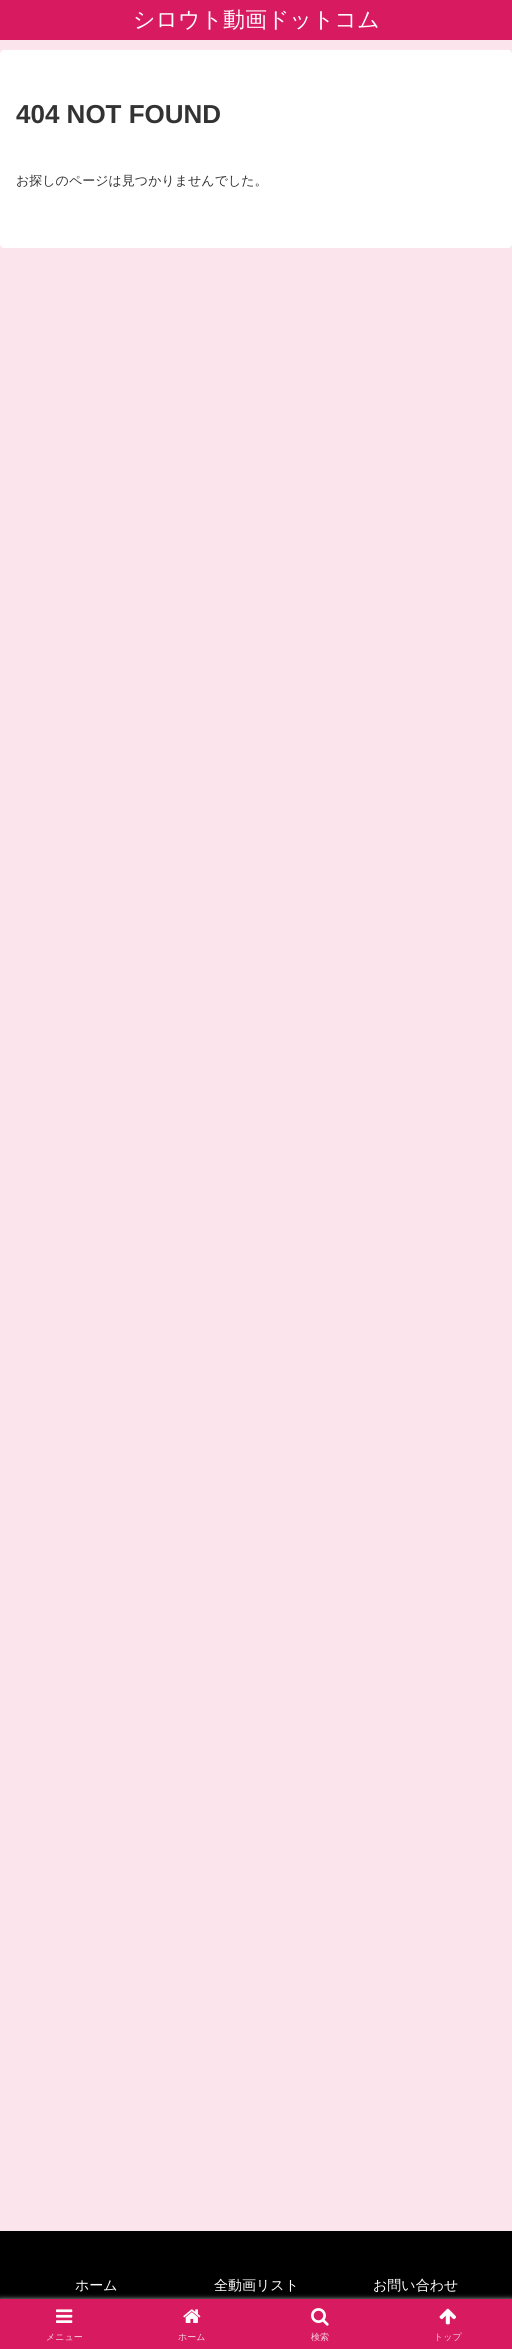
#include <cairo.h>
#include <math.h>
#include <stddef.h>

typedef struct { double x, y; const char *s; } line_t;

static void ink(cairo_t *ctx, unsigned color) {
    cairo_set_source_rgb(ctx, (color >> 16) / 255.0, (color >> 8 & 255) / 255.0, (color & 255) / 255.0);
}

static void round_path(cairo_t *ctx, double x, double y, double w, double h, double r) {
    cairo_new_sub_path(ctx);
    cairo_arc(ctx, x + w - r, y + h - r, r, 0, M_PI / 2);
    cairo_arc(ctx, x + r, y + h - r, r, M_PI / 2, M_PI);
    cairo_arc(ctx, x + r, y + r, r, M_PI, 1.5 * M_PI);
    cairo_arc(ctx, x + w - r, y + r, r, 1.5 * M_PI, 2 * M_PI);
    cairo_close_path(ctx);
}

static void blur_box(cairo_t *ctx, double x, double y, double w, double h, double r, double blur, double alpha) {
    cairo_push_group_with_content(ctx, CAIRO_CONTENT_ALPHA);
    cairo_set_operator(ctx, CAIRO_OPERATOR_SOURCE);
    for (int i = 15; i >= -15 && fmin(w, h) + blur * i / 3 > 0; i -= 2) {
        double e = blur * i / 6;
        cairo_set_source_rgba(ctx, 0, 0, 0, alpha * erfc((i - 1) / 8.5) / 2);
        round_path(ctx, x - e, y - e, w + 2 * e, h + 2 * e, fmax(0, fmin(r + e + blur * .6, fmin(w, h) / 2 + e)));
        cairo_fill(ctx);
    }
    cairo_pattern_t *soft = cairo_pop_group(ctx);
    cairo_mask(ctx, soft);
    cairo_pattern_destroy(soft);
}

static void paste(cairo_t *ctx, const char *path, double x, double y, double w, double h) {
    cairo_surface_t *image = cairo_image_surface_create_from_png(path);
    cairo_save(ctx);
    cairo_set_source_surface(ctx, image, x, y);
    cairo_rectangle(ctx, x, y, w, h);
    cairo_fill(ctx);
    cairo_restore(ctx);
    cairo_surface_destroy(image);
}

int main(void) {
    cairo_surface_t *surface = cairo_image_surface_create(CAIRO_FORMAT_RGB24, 512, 2349);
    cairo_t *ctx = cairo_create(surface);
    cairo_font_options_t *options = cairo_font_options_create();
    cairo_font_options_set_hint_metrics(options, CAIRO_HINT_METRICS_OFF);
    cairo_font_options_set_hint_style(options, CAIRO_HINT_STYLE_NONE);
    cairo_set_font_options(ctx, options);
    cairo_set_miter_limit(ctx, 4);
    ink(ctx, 0xFCE4EC);
    cairo_paint(ctx);
    ink(ctx, 0xD81B60);
    cairo_rectangle(ctx, 0, 0, 512, 40);
    cairo_fill(ctx);
    cairo_select_font_face(ctx, "WenQuanYi Zen Hei Medium", CAIRO_FONT_SLANT_NORMAL, CAIRO_FONT_WEIGHT_NORMAL);
    cairo_set_font_size(ctx, 22);
    ink(ctx, 0xFFFFFF);
    cairo_move_to(ctx, 133, 27);
    cairo_show_text(ctx, "シロウト動画ドットコム");
    round_path(ctx, 0, 50, 512, 198, 4);
    cairo_fill(ctx);
    cairo_select_font_face(ctx, "Liberation Sans", CAIRO_FONT_SLANT_NORMAL, CAIRO_FONT_WEIGHT_BOLD);
    cairo_set_font_size(ctx, 26);
    ink(ctx, 0x333333);
    cairo_move_to(ctx, 16, 123);
    cairo_show_text(ctx, "404 NOT FOUND");
    cairo_select_font_face(ctx, "WenQuanYi Zen Hei Medium", CAIRO_FONT_SLANT_NORMAL, CAIRO_FONT_WEIGHT_NORMAL);
    cairo_set_font_size(ctx, 13);
    cairo_move_to(ctx, 16, 185);
    cairo_show_text(ctx, "お探しのページは見つかりませんでした。");
    ink(ctx, 0x000000);
    cairo_rectangle(ctx, 0, 2231, 512, 68);
    cairo_fill(ctx);
    cairo_set_font_size(ctx, 14);
    ink(ctx, 0xFFFFFF);
    {
        static const line_t items[] = {
            {75, 2290, "ホーム"},
            {214, 2290, "全動画リスト"},
            {373, 2290, "お問い合わせ"},
        };
        for (size_t i = 0; i < sizeof items / sizeof *items; i++) {
            cairo_move_to(ctx, items[i].x, items[i].y);
            cairo_show_text(ctx, items[i].s);
        }
    }
    ink(ctx, 0xA9A9A9);
    blur_box(ctx, 0, 2299, 512, 50, 0, 2.5, 1);
    ink(ctx, 0xD81B60);
    cairo_rectangle(ctx, 0, 2299, 512, 50);
    cairo_fill(ctx);
    paste(ctx, "media/1.png", 56, 2309, 17, 14);
    cairo_set_font_size(ctx, 9);
    ink(ctx, 0xF7D1DF);
    cairo_move_to(ctx, 46, 2340);
    cairo_show_text(ctx, "メニュー");
    paste(ctx, "media/2.png", 183, 2309, 18, 14);
    cairo_move_to(ctx, 178, 2340);
    cairo_show_text(ctx, "ホーム");
    paste(ctx, "media/3.png", 311, 2308, 18, 18);
    cairo_move_to(ctx, 311, 2340);
    cairo_show_text(ctx, "検索");
    paste(ctx, "media/4.png", 439, 2308, 17, 17);
    cairo_move_to(ctx, 434, 2340);
    cairo_show_text(ctx, "トップ");
    cairo_surface_write_to_png(surface, "image.png");
    cairo_font_options_destroy(options);
    cairo_destroy(ctx);
    cairo_surface_destroy(surface);
    return 0;
}
